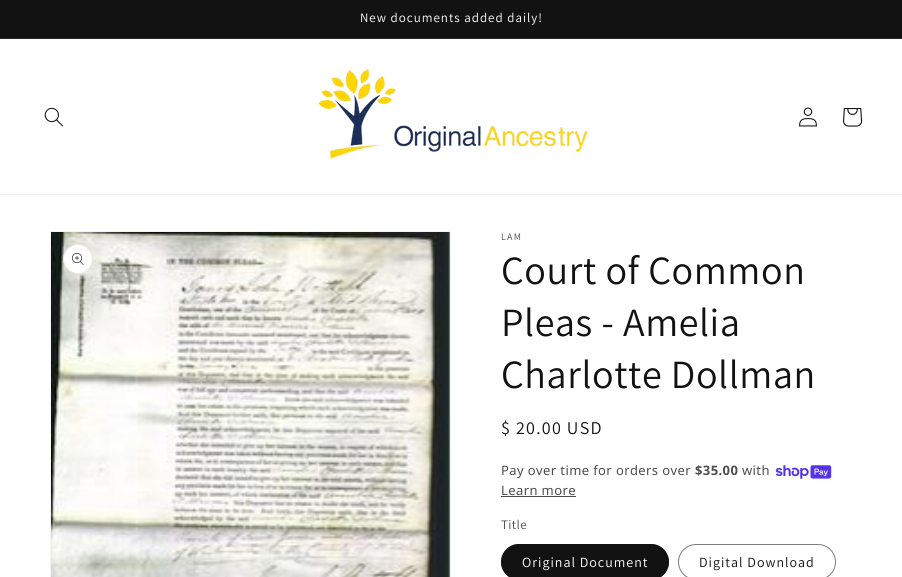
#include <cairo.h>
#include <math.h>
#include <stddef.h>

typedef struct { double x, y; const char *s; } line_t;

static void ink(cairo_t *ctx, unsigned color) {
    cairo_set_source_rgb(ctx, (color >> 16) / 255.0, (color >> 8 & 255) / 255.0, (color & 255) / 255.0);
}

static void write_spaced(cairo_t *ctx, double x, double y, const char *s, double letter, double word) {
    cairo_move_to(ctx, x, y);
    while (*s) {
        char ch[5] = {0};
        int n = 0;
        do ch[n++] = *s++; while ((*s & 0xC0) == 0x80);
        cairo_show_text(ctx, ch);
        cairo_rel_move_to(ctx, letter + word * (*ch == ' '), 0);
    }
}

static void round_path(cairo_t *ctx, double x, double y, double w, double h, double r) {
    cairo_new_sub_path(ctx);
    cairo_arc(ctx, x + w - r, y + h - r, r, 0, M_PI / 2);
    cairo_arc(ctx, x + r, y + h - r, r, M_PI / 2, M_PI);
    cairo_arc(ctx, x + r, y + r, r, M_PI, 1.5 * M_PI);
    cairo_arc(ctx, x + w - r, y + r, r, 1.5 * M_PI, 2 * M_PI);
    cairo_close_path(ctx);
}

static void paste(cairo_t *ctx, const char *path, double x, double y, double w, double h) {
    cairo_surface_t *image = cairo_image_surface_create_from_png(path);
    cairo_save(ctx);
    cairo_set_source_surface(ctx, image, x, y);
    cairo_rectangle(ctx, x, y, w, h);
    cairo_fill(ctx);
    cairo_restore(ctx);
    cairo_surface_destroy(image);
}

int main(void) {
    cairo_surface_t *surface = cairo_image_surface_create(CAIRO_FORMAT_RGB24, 902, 577);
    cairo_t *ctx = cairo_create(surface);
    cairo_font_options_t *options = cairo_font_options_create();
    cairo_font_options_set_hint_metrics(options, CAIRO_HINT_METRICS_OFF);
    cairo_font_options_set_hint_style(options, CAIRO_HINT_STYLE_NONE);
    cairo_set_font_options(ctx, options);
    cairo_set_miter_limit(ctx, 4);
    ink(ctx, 0xFFFFFF);
    cairo_paint(ctx);
    ink(ctx, 0x121212);
    cairo_rectangle(ctx, 0, 0, 902, 38);
    cairo_fill(ctx);
    ink(ctx, 0x252525);
    cairo_rectangle(ctx, 0, 38, 902, 1);
    cairo_fill(ctx);
    cairo_select_font_face(ctx, "Assistant", CAIRO_FONT_SLANT_NORMAL, CAIRO_FONT_WEIGHT_NORMAL);
    cairo_set_font_size(ctx, 13);
    ink(ctx, 0xFFFFFF);
    write_spaced(ctx, 360, 22, "New documents added daily!", 1, 0);
    ink(ctx, 0xECECEC);
    cairo_rectangle(ctx, 0, 194, 902, 1);
    cairo_fill(ctx);
    paste(ctx, "media/1.png", 44, 107, 19, 20);
    paste(ctx, "media/2.png", 318, 69, 270, 90);
    paste(ctx, "media/3.png", 799, 107, 18, 20);
    paste(ctx, "media/4.png", 843, 108, 20, 19);
    cairo_rectangle(ctx, 50.5, 231.5, 400, 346);
    ink(ctx, 0xF3F3F3);
    cairo_set_line_width(ctx, 1);
    cairo_stroke(ctx);
    paste(ctx, "media/5.png", 51, 232, 399, 345);
    ink(ctx, 0xFFFFFF);
    cairo_arc(ctx, 78, 259, 15, 0, 2 * M_PI);
    cairo_fill(ctx);
    cairo_arc(ctx, 78, 259, 14.5, 0, 2 * M_PI);
    cairo_set_source_rgba(ctx, 0.071, 0.071, 0.071, 0.1);
    cairo_stroke(ctx);
    paste(ctx, "media/6.png", 72, 253, 12, 12);
    cairo_set_font_size(ctx, 10);
    ink(ctx, 0x4D4D4D);
    write_spaced(ctx, 501, 240, "LAM", 1.25, 0);
    cairo_set_font_size(ctx, 40);
    ink(ctx, 0x121212);
    {
        static const line_t items[] = {
            {501, 284, "Court of Common"},
            {501, 336, "Pleas - Amelia"},
            {501, 388, "Charlotte Dollman"},
        };
        for (size_t i = 0; i < sizeof items / sizeof *items; i++) {
            write_spaced(ctx, items[i].x, items[i].y, items[i].s, 0.6, 0);
        }
    }
    cairo_set_font_size(ctx, 18);
    write_spaced(ctx, 501, 434, "$ 20.00 USD", 1.25, 0);
    cairo_select_font_face(ctx, "Noto Sans", CAIRO_FONT_SLANT_NORMAL, CAIRO_FONT_WEIGHT_NORMAL);
    cairo_set_font_size(ctx, 13);
    ink(ctx, 0x4D4D4D);
    write_spaced(ctx, 501, 475, "Pay over time for orders over", 0.4, 0);
    cairo_select_font_face(ctx, "Noto Sans", CAIRO_FONT_SLANT_NORMAL, CAIRO_FONT_WEIGHT_BOLD);
    write_spaced(ctx, 695, 475, "$35.00", 0.4, 0);
    cairo_select_font_face(ctx, "Noto Sans", CAIRO_FONT_SLANT_NORMAL, CAIRO_FONT_WEIGHT_NORMAL);
    write_spaced(ctx, 742, 475, "with", 0.4, 0);
    paste(ctx, "media/7.png", 775, 465, 57, 14);
    write_spaced(ctx, 501, 495, "Learn more", 0.4, 0);
    cairo_rectangle(ctx, 501, 496, 75, 1);
    cairo_fill(ctx);
    cairo_select_font_face(ctx, "Assistant", CAIRO_FONT_SLANT_NORMAL, CAIRO_FONT_WEIGHT_NORMAL);
    write_spaced(ctx, 501, 529, "Title", 0.4, 0);
    ink(ctx, 0x121212);
    round_path(ctx, 501, 544, 168, 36, 18);
    cairo_fill(ctx);
    round_path(ctx, 501.5, 544.5, 167, 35, 17.5);
    cairo_set_source_rgba(ctx, 0.071, 0.071, 0.071, 0.55);
    cairo_stroke(ctx);
    cairo_set_font_size(ctx, 14);
    ink(ctx, 0xFFFFFF);
    write_spaced(ctx, 522, 567, "Original Document", 1, 0);
    round_path(ctx, 678.5, 544.5, 157, 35, 17.5);
    ink(ctx, 0x7D7D7D);
    cairo_stroke(ctx);
    ink(ctx, 0x121212);
    write_spaced(ctx, 699, 567, "Digital Download", 1, 0);
    cairo_surface_write_to_png(surface, "image.png");
    cairo_font_options_destroy(options);
    cairo_destroy(ctx);
    cairo_surface_destroy(surface);
    return 0;
}
